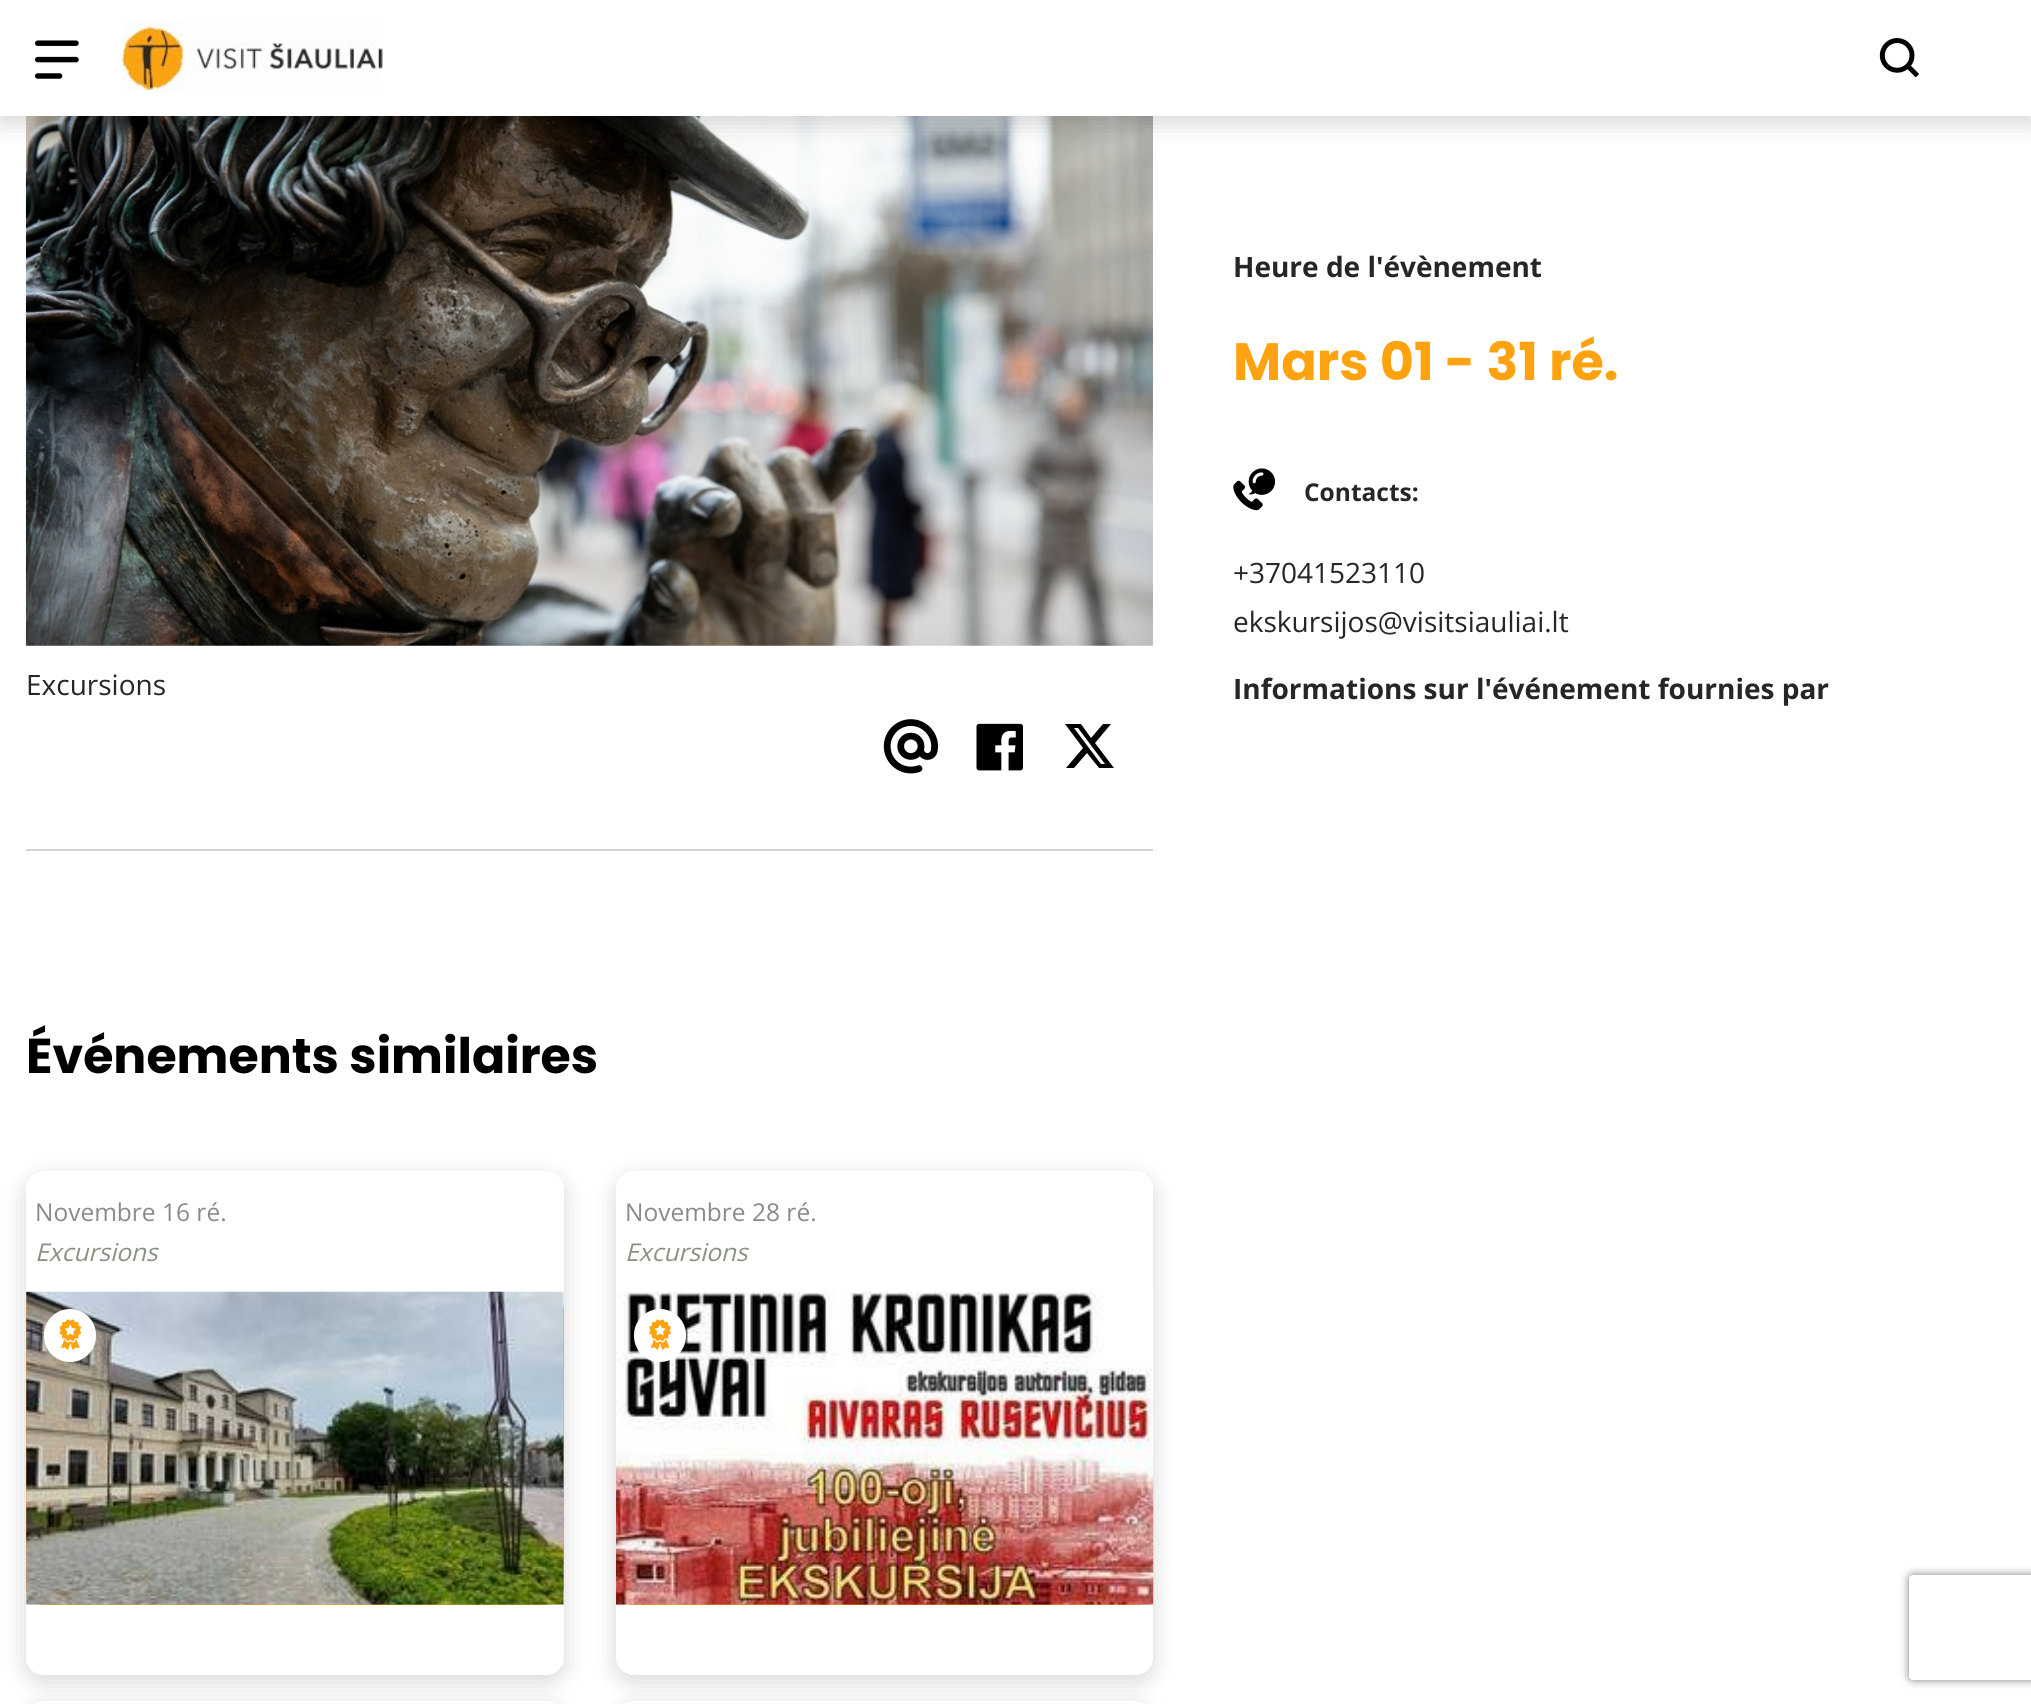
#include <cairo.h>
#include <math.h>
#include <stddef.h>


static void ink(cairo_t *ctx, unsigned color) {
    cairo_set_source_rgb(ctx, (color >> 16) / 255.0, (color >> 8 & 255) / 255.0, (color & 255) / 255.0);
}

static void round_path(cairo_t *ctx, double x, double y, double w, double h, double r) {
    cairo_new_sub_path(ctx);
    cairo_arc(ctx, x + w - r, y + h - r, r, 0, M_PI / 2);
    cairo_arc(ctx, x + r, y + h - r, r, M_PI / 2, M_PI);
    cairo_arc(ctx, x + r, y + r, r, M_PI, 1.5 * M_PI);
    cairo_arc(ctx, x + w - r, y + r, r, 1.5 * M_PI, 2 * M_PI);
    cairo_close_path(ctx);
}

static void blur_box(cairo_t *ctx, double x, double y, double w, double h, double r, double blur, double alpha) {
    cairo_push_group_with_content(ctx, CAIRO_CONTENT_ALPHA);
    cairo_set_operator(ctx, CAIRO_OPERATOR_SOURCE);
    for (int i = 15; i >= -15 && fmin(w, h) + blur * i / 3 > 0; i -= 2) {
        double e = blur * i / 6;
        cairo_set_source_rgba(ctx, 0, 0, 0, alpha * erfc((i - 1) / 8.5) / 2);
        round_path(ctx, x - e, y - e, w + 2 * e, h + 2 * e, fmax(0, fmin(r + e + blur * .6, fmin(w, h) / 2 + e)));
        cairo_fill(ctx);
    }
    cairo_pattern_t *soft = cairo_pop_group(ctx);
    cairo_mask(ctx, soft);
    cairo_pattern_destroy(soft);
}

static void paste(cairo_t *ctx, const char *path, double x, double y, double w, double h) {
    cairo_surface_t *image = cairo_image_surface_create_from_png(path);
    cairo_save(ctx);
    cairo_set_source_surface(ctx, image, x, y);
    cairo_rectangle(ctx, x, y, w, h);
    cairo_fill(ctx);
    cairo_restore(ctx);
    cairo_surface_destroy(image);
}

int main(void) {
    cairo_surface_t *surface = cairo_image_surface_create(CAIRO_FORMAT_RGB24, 2031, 1704);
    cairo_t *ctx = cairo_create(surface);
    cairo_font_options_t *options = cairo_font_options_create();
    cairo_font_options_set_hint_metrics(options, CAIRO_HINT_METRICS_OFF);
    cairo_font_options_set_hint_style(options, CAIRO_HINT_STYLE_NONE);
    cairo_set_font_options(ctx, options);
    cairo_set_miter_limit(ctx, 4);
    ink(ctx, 0xFFFFFF);
    cairo_paint(ctx);
    paste(ctx, "media/5.png", 25, 116, 1128, 530);
    ink(ctx, 0x000000);
    blur_box(ctx, 0, 7, 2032, 116, 0, 12, 0.16);
    ink(ctx, 0xFFFFFF);
    cairo_rectangle(ctx, 0, 0, 2031, 116);
    cairo_fill(ctx);
    paste(ctx, "media/1.png", 35, 40, 44, 39);
    paste(ctx, "media/2.png", 122, 21, 261, 70);
    paste(ctx, "media/3.png", 1879, 38, 40, 40);
    cairo_select_font_face(ctx, "Open Sans", CAIRO_FONT_SLANT_NORMAL, CAIRO_FONT_WEIGHT_BOLD);
    cairo_set_font_size(ctx, 28);
    ink(ctx, 0x262626);
    cairo_move_to(ctx, 1233, 277);
    cairo_show_text(ctx, "Heure de l'évènement");
    cairo_select_font_face(ctx, "Poppins", CAIRO_FONT_SLANT_NORMAL, CAIRO_FONT_WEIGHT_BOLD);
    cairo_set_font_size(ctx, 52.5);
    ink(ctx, 0xFFA20F);
    cairo_move_to(ctx, 1233, 380);
    cairo_show_text(ctx, "Mars 01 - 31 ré.");
    paste(ctx, "media/4.png", 1233, 468, 43, 43);
    cairo_select_font_face(ctx, "Open Sans", CAIRO_FONT_SLANT_NORMAL, CAIRO_FONT_WEIGHT_BOLD);
    cairo_set_font_size(ctx, 24.5);
    ink(ctx, 0x262626);
    cairo_move_to(ctx, 1304, 501);
    cairo_show_text(ctx, "Contacts:");
    cairo_select_font_face(ctx, "Open Sans", CAIRO_FONT_SLANT_NORMAL, CAIRO_FONT_WEIGHT_NORMAL);
    cairo_set_font_size(ctx, 28);
    cairo_move_to(ctx, 1233, 583);
    cairo_show_text(ctx, "+37041523110");
    cairo_move_to(ctx, 1233, 632);
    cairo_show_text(ctx, "ekskursijos@visitsiauliai.lt");
    cairo_select_font_face(ctx, "Open Sans", CAIRO_FONT_SLANT_NORMAL, CAIRO_FONT_WEIGHT_BOLD);
    cairo_move_to(ctx, 1233, 699);
    cairo_show_text(ctx, "Informations sur l'événement fournies par");
    cairo_select_font_face(ctx, "Open Sans", CAIRO_FONT_SLANT_NORMAL, CAIRO_FONT_WEIGHT_NORMAL);
    cairo_move_to(ctx, 26, 695);
    cairo_show_text(ctx, "Excursions");
    paste(ctx, "media/6.png", 883, 719, 55, 55);
    paste(ctx, "media/7.png", 976, 723, 47, 48);
    ink(ctx, 0x000000);
    cairo_new_path(ctx);
    cairo_move_to(ctx, 1103, 724);
    cairo_line_to(ctx, 1111, 724);
    cairo_line_to(ctx, 1095, 743);
    cairo_line_to(ctx, 1114, 768);
    cairo_line_to(ctx, 1099, 768);
    cairo_line_to(ctx, 1087, 753);
    cairo_line_to(ctx, 1074, 768);
    cairo_line_to(ctx, 1066, 768);
    cairo_line_to(ctx, 1083, 748);
    cairo_line_to(ctx, 1065, 724);
    cairo_line_to(ctx, 1081, 724);
    cairo_line_to(ctx, 1091, 738);
    cairo_close_path(ctx);
    cairo_move_to(ctx, 1101, 764);
    cairo_line_to(ctx, 1105, 764);
    cairo_line_to(ctx, 1078, 728);
    cairo_line_to(ctx, 1074, 728);
    cairo_close_path(ctx);
    cairo_fill(ctx);
    ink(ctx, 0xD4D4D4);
    cairo_rectangle(ctx, 26, 849, 1127, 2);
    cairo_fill(ctx);
    cairo_select_font_face(ctx, "Poppins", CAIRO_FONT_SLANT_NORMAL, CAIRO_FONT_WEIGHT_BOLD);
    cairo_set_font_size(ctx, 49);
    ink(ctx, 0x000000);
    cairo_move_to(ctx, 26, 1073);
    cairo_show_text(ctx, "Événements similaires");
    cairo_save(ctx);
    cairo_set_fill_rule(ctx, CAIRO_FILL_RULE_EVEN_ODD);
    cairo_new_path(ctx);
    cairo_move_to(ctx, 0, 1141);
    cairo_line_to(ctx, 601, 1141);
    cairo_line_to(ctx, 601, 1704);
    cairo_line_to(ctx, 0, 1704);
    cairo_close_path(ctx);
    cairo_move_to(ctx, 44, 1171);
    cairo_line_to(ctx, 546, 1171);
    cairo_curve_to(ctx, 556, 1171, 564, 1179, 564, 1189);
    cairo_line_to(ctx, 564, 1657);
    cairo_curve_to(ctx, 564, 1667, 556, 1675, 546, 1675);
    cairo_line_to(ctx, 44, 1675);
    cairo_curve_to(ctx, 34, 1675, 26, 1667, 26, 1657);
    cairo_line_to(ctx, 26, 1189);
    cairo_curve_to(ctx, 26, 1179, 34, 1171, 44, 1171);
    cairo_close_path(ctx);
    cairo_clip(ctx);
    ink(ctx, 0x000000);
    blur_box(ctx, 26, 1178, 538, 504, 18, 12, 0.16);
    cairo_restore(ctx);
    cairo_select_font_face(ctx, "Open Sans", CAIRO_FONT_SLANT_NORMAL, CAIRO_FONT_WEIGHT_NORMAL);
    cairo_set_font_size(ctx, 24.5);
    ink(ctx, 0x8A8A8A);
    cairo_move_to(ctx, 35, 1221);
    cairo_show_text(ctx, "Novembre 16 ré.");
    cairo_select_font_face(ctx, "Open Sans", CAIRO_FONT_SLANT_ITALIC, CAIRO_FONT_WEIGHT_NORMAL);
    ink(ctx, 0x889180);
    cairo_move_to(ctx, 35, 1261);
    cairo_show_text(ctx, "Excursions");
    ink(ctx, 0xFFA20F);
    round_path(ctx, 26, 1292, 538, 313, 18);
    cairo_fill(ctx);
    paste(ctx, "media/8.png", 26, 1291, 538, 314);
    ink(ctx, 0xFFFFFF);
    round_path(ctx, 44, 1309, 52, 53, 26);
    cairo_fill(ctx);
    paste(ctx, "media/9.png", 59, 1319, 23, 31);
    cairo_save(ctx);
    cairo_set_fill_rule(ctx, CAIRO_FILL_RULE_EVEN_ODD);
    cairo_new_path(ctx);
    cairo_move_to(ctx, 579, 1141);
    cairo_line_to(ctx, 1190, 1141);
    cairo_line_to(ctx, 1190, 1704);
    cairo_line_to(ctx, 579, 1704);
    cairo_close_path(ctx);
    cairo_move_to(ctx, 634, 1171);
    cairo_line_to(ctx, 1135, 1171);
    cairo_curve_to(ctx, 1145, 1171, 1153, 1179, 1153, 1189);
    cairo_line_to(ctx, 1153, 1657);
    cairo_curve_to(ctx, 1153, 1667, 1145, 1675, 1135, 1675);
    cairo_line_to(ctx, 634, 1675);
    cairo_curve_to(ctx, 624, 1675, 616, 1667, 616, 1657);
    cairo_line_to(ctx, 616, 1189);
    cairo_curve_to(ctx, 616, 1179, 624, 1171, 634, 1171);
    cairo_close_path(ctx);
    cairo_clip(ctx);
    ink(ctx, 0x000000);
    blur_box(ctx, 616, 1178, 537, 504, 18, 12, 0.16);
    cairo_restore(ctx);
    cairo_select_font_face(ctx, "Open Sans", CAIRO_FONT_SLANT_NORMAL, CAIRO_FONT_WEIGHT_NORMAL);
    ink(ctx, 0x8A8A8A);
    cairo_move_to(ctx, 625, 1221);
    cairo_show_text(ctx, "Novembre 28 ré.");
    cairo_select_font_face(ctx, "Open Sans", CAIRO_FONT_SLANT_ITALIC, CAIRO_FONT_WEIGHT_NORMAL);
    ink(ctx, 0x889180);
    cairo_move_to(ctx, 625, 1261);
    cairo_show_text(ctx, "Excursions");
    ink(ctx, 0xFFA20F);
    round_path(ctx, 616, 1292, 537, 313, 18);
    cairo_fill(ctx);
    paste(ctx, "media/10.png", 616, 1291, 538, 314);
    ink(ctx, 0xFFFFFF);
    round_path(ctx, 634, 1309, 52, 53, 26);
    cairo_fill(ctx);
    paste(ctx, "media/11.png", 649, 1319, 22, 31);
    cairo_save(ctx);
    cairo_set_fill_rule(ctx, CAIRO_FILL_RULE_EVEN_ODD);
    cairo_new_path(ctx);
    cairo_move_to(ctx, 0, 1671);
    cairo_line_to(ctx, 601, 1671);
    cairo_line_to(ctx, 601, 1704);
    cairo_line_to(ctx, 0, 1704);
    cairo_close_path(ctx);
    cairo_move_to(ctx, 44, 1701);
    cairo_line_to(ctx, 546, 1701);
    cairo_curve_to(ctx, 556, 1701, 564, 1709, 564, 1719);
    cairo_line_to(ctx, 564, 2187);
    cairo_curve_to(ctx, 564, 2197, 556, 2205, 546, 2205);
    cairo_line_to(ctx, 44, 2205);
    cairo_curve_to(ctx, 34, 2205, 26, 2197, 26, 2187);
    cairo_line_to(ctx, 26, 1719);
    cairo_curve_to(ctx, 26, 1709, 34, 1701, 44, 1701);
    cairo_close_path(ctx);
    cairo_clip(ctx);
    ink(ctx, 0x000000);
    blur_box(ctx, 26, 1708, 538, 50, 18, 12, 0.16);
    cairo_restore(ctx);
    cairo_save(ctx);
    cairo_set_fill_rule(ctx, CAIRO_FILL_RULE_EVEN_ODD);
    cairo_new_path(ctx);
    cairo_move_to(ctx, 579, 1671);
    cairo_line_to(ctx, 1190, 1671);
    cairo_line_to(ctx, 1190, 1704);
    cairo_line_to(ctx, 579, 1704);
    cairo_close_path(ctx);
    cairo_move_to(ctx, 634, 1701);
    cairo_line_to(ctx, 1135, 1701);
    cairo_curve_to(ctx, 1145, 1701, 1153, 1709, 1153, 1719);
    cairo_line_to(ctx, 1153, 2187);
    cairo_curve_to(ctx, 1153, 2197, 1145, 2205, 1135, 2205);
    cairo_line_to(ctx, 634, 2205);
    cairo_curve_to(ctx, 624, 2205, 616, 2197, 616, 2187);
    cairo_line_to(ctx, 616, 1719);
    cairo_curve_to(ctx, 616, 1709, 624, 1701, 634, 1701);
    cairo_close_path(ctx);
    cairo_clip(ctx);
    ink(ctx, 0x000000);
    blur_box(ctx, 616, 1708, 537, 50, 18, 12, 0.16);
    cairo_restore(ctx);
    cairo_save(ctx);
    cairo_set_fill_rule(ctx, CAIRO_FILL_RULE_EVEN_ODD);
    cairo_new_path(ctx);
    cairo_move_to(ctx, 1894, 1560);
    cairo_line_to(ctx, 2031, 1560);
    cairo_line_to(ctx, 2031, 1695);
    cairo_line_to(ctx, 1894, 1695);
    cairo_close_path(ctx);
    cairo_move_to(ctx, 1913, 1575);
    cairo_line_to(ctx, 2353, 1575);
    cairo_curve_to(ctx, 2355, 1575, 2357, 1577, 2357, 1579);
    cairo_line_to(ctx, 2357, 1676);
    cairo_curve_to(ctx, 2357, 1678, 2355, 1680, 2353, 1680);
    cairo_line_to(ctx, 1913, 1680);
    cairo_curve_to(ctx, 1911, 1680, 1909, 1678, 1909, 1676);
    cairo_line_to(ctx, 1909, 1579);
    cairo_curve_to(ctx, 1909, 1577, 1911, 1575, 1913, 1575);
    cairo_close_path(ctx);
    cairo_clip(ctx);
    ink(ctx, 0x808080);
    blur_box(ctx, 1909, 1575, 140, 105, 4, 4.5, 1);
    cairo_restore(ctx);
    cairo_surface_write_to_png(surface, "image.png");
    cairo_font_options_destroy(options);
    cairo_destroy(ctx);
    cairo_surface_destroy(surface);
    return 0;
}
